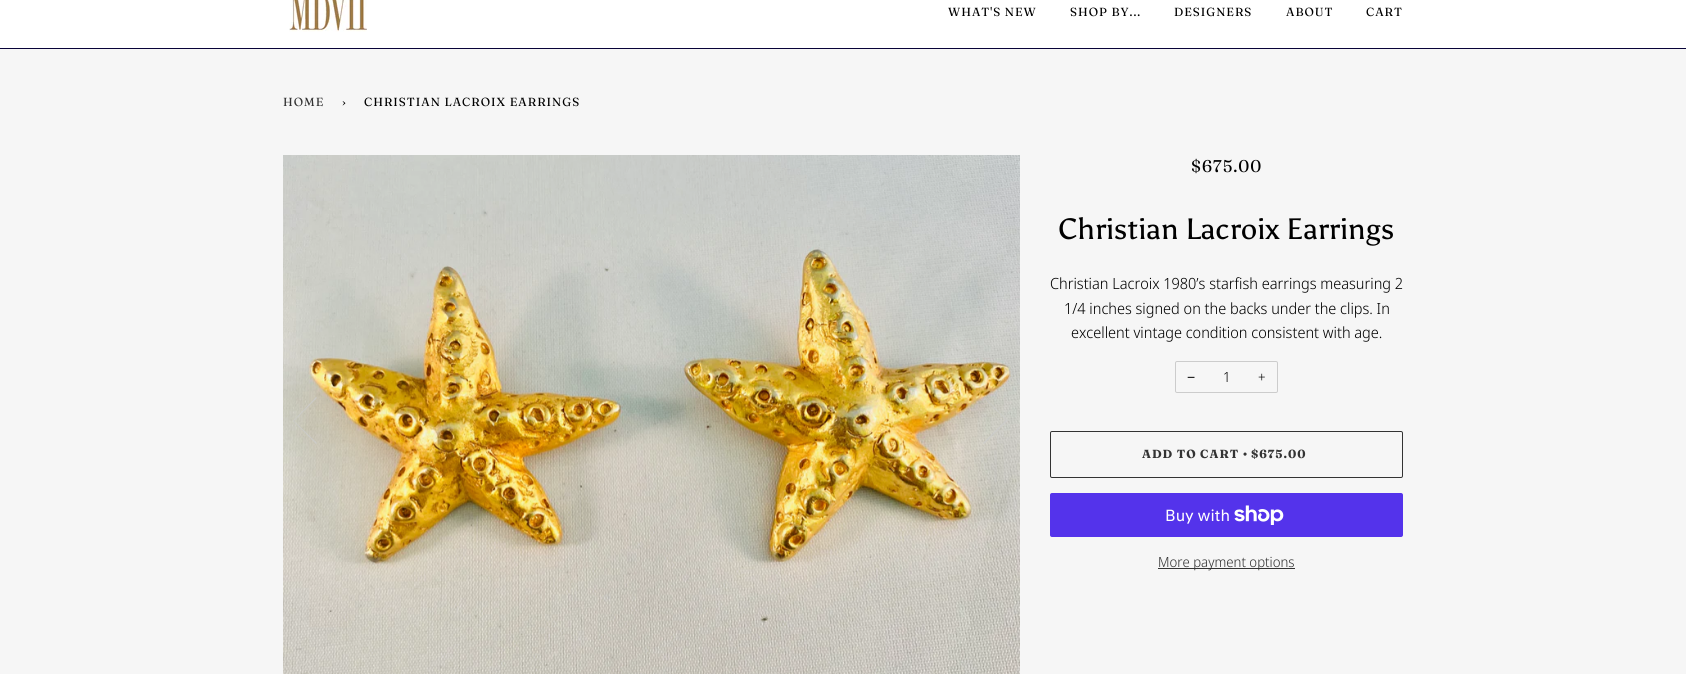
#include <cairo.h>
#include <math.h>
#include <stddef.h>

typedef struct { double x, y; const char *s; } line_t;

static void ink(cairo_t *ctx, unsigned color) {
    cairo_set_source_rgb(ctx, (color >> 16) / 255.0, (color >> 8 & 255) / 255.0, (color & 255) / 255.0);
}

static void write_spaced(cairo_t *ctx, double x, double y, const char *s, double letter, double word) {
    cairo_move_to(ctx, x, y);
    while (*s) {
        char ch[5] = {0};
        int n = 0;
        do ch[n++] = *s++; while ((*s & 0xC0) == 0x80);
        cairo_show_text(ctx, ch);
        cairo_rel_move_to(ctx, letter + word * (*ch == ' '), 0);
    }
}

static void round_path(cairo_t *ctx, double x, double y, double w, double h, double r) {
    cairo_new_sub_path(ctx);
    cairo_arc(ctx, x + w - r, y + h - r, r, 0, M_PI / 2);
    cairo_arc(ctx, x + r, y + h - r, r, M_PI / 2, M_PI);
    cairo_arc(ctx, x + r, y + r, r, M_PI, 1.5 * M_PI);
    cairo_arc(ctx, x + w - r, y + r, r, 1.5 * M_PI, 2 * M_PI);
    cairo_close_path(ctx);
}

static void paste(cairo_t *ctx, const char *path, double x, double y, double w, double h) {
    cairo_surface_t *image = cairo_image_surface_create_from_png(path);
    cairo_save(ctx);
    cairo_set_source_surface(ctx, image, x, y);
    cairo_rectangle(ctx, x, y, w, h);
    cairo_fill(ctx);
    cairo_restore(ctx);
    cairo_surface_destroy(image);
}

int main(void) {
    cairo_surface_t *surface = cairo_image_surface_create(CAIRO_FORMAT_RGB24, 1686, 674);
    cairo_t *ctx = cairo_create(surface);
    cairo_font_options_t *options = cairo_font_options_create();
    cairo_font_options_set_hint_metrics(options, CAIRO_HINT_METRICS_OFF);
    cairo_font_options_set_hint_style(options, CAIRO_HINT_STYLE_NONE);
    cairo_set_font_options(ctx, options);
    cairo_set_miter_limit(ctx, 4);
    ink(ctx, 0xFFFFFF);
    cairo_paint(ctx);
    ink(ctx, 0x080338);
    cairo_rectangle(ctx, 0, 48, 1686, 1);
    cairo_fill(ctx);
    paste(ctx, "media/1.png", 289, 0, 78, 32);
    cairo_select_font_face(ctx, "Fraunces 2", CAIRO_FONT_SLANT_NORMAL, CAIRO_FONT_WEIGHT_NORMAL);
    cairo_set_font_size(ctx, 11.75);
    ink(ctx, 0x000000);
    {
        static const line_t items[] = {
            {948, 16, "WHAT'S NEW"},
            {1070, 16, "SHOP BY..."},
            {1174, 16, "DESIGNERS"},
            {1286, 16, "ABOUT"},
            {1366, 16, "CART"},
        };
        for (size_t i = 0; i < sizeof items / sizeof *items; i++) {
            write_spaced(ctx, items[i].x, items[i].y, items[i].s, 1, 0);
        }
    }
    ink(ctx, 0xF6F6F6);
    cairo_rectangle(ctx, 0, 49, 1686, 625);
    cairo_fill(ctx);
    ink(ctx, 0x333333);
    write_spaced(ctx, 283, 106, "HOME", 1, 0);
    ink(ctx, 0x000000);
    write_spaced(ctx, 342, 106, "›", 1, 0);
    write_spaced(ctx, 364, 106, "CHRISTIAN LACROIX EARRINGS", 1, 0);
    paste(ctx, "media/2.png", 283, 155, 737, 519);
    cairo_set_source_rgba(ctx, 0.8, 0.8, 0.8, 0.75);
    cairo_new_path(ctx);
    cairo_move_to(ctx, 293, 421);
    cairo_line_to(ctx, 316, 444);
    cairo_line_to(ctx, 317, 443);
    cairo_line_to(ctx, 294, 421);
    cairo_line_to(ctx, 317, 398);
    cairo_line_to(ctx, 316, 397);
    cairo_close_path(ctx);
    cairo_fill(ctx);
    cairo_new_path(ctx);
    cairo_move_to(ctx, 1007, 420);
    cairo_line_to(ctx, 984, 397);
    cairo_line_to(ctx, 984, 398);
    cairo_line_to(ctx, 1006, 420);
    cairo_line_to(ctx, 983, 443);
    cairo_line_to(ctx, 984, 444);
    cairo_line_to(ctx, 1008, 420);
    cairo_close_path(ctx);
    cairo_fill(ctx);
    cairo_select_font_face(ctx, "Fraunces", CAIRO_FONT_SLANT_NORMAL, CAIRO_FONT_WEIGHT_NORMAL);
    cairo_set_font_size(ctx, 17);
    ink(ctx, 0x000000);
    write_spaced(ctx, 1191, 172, "$675.00", 1, 0);
    cairo_select_font_face(ctx, "Asul", CAIRO_FONT_SLANT_NORMAL, CAIRO_FONT_WEIGHT_NORMAL);
    cairo_set_font_size(ctx, 29.4);
    cairo_move_to(ctx, 1058, 239);
    cairo_show_text(ctx, "Christian Lacroix Earrings");
    cairo_select_font_face(ctx, "Noto Sans Display Light", CAIRO_FONT_SLANT_NORMAL, CAIRO_FONT_WEIGHT_NORMAL);
    cairo_set_font_size(ctx, 15.4);
    {
        static const line_t items[] = {
            {1050, 289, "Christian Lacroix 1980’s starfish earrings measuring 2"},
            {1064, 314, "1/4 inches signed on the backs under the clips. In"},
            {1071, 338, "excellent vintage condition consistent with age."},
        };
        for (size_t i = 0; i < sizeof items / sizeof *items; i++) {
            cairo_move_to(ctx, items[i].x, items[i].y);
            cairo_show_text(ctx, items[i].s);
        }
    }
    round_path(ctx, 1175.5, 361.5, 102, 31, 1.5);
    ink(ctx, 0xCCCCCC);
    cairo_set_line_width(ctx, 1);
    cairo_stroke(ctx);
    cairo_select_font_face(ctx, "Liberation Sans", CAIRO_FONT_SLANT_NORMAL, CAIRO_FONT_WEIGHT_NORMAL);
    cairo_set_font_size(ctx, 14);
    ink(ctx, 0x000000);
    cairo_move_to(ctx, 1187, 382);
    cairo_show_text(ctx, "−");
    cairo_select_font_face(ctx, "Noto Sans Display Light", CAIRO_FONT_SLANT_NORMAL, CAIRO_FONT_WEIGHT_NORMAL);
    cairo_move_to(ctx, 1223, 382);
    cairo_show_text(ctx, "1");
    cairo_move_to(ctx, 1258, 382);
    cairo_show_text(ctx, "+");
    round_path(ctx, 1050.5, 431.5, 352, 46, 1.5);
    ink(ctx, 0x333333);
    cairo_stroke(ctx);
    cairo_select_font_face(ctx, "Fraunces", CAIRO_FONT_SLANT_NORMAL, CAIRO_FONT_WEIGHT_BOLD);
    cairo_set_font_size(ctx, 11.75);
    write_spaced(ctx, 1142, 458, "ADD TO CART", 1, 0);
    cairo_select_font_face(ctx, "Liberation Serif", CAIRO_FONT_SLANT_NORMAL, CAIRO_FONT_WEIGHT_BOLD);
    write_spaced(ctx, 1243, 458, "•", 1, 0);
    cairo_select_font_face(ctx, "Fraunces", CAIRO_FONT_SLANT_NORMAL, CAIRO_FONT_WEIGHT_BOLD);
    write_spaced(ctx, 1251, 458, "$675.00", 1, 0);
    ink(ctx, 0x5433EB);
    round_path(ctx, 1050, 493, 353, 44, 2);
    cairo_fill(ctx);
    cairo_select_font_face(ctx, "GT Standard", CAIRO_FONT_SLANT_NORMAL, CAIRO_FONT_WEIGHT_NORMAL);
    cairo_set_font_size(ctx, 16);
    ink(ctx, 0xFFFFFF);
    cairo_move_to(ctx, 1165, 521);
    cairo_show_text(ctx, "Buy with");
    paste(ctx, "media/3.png", 1234, 505, 50, 20);
    ink(ctx, 0x333333);
    cairo_rectangle(ctx, 1158, 568, 137, 1);
    cairo_fill(ctx);
    cairo_select_font_face(ctx, "Noto Sans Display Light", CAIRO_FONT_SLANT_NORMAL, CAIRO_FONT_WEIGHT_NORMAL);
    cairo_set_font_size(ctx, 14);
    cairo_move_to(ctx, 1158, 567);
    cairo_show_text(ctx, "More payment options");
    cairo_surface_write_to_png(surface, "image.png");
    cairo_font_options_destroy(options);
    cairo_destroy(ctx);
    cairo_surface_destroy(surface);
    return 0;
}
